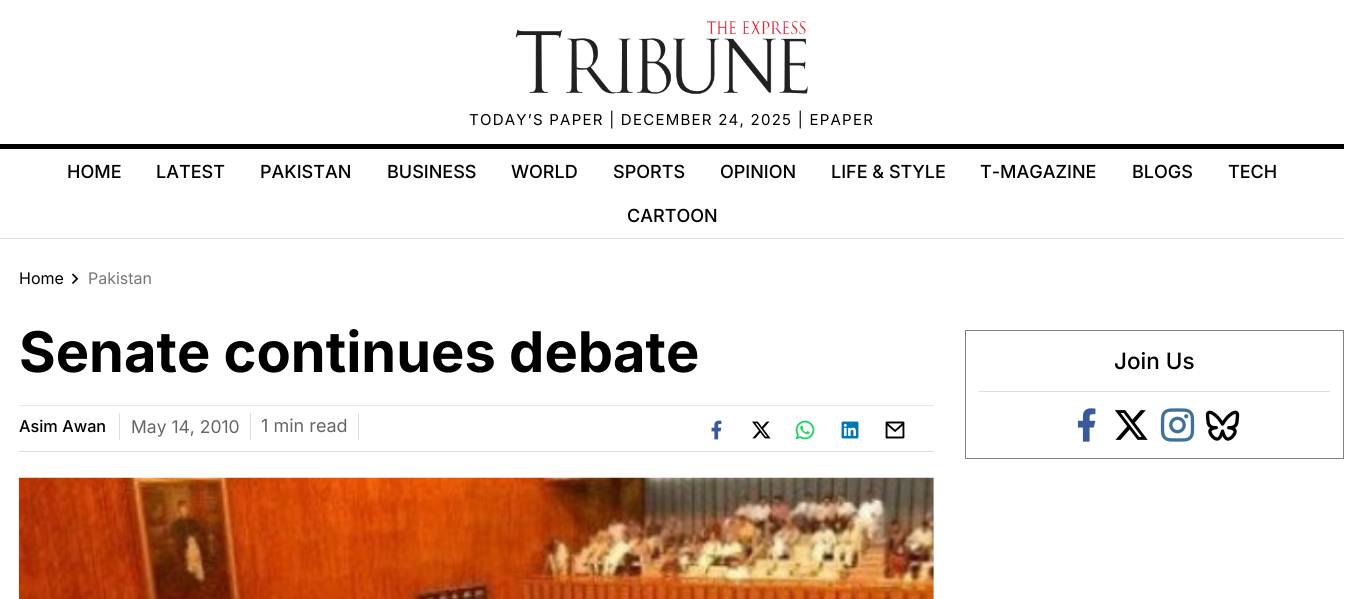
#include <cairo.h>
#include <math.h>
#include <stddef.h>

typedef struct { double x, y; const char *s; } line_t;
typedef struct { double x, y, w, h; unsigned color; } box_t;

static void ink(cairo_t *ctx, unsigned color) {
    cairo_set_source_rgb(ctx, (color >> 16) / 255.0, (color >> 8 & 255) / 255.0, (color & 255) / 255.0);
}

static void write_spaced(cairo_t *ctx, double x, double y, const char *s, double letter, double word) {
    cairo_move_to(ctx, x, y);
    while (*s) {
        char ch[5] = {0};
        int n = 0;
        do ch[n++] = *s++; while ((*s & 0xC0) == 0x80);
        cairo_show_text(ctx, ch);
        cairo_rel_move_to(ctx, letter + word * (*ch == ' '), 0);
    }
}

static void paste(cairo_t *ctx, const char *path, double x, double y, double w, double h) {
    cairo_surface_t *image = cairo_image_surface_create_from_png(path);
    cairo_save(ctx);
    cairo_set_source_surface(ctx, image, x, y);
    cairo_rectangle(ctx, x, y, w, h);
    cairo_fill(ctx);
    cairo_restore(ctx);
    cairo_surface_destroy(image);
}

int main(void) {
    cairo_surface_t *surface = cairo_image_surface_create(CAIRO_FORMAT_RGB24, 1362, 599);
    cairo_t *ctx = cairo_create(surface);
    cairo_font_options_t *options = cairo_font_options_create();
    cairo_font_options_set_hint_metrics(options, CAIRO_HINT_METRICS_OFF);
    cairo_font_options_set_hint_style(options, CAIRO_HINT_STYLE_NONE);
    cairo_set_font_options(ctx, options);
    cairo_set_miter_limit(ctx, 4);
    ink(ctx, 0xFFFFFF);
    cairo_paint(ctx);
    paste(ctx, "media/1.png", 515, 21, 293, 73);
    cairo_select_font_face(ctx, "Inter", CAIRO_FONT_SLANT_NORMAL, CAIRO_FONT_WEIGHT_NORMAL);
    cairo_set_font_size(ctx, 15);
    ink(ctx, 0x000000);
    write_spaced(ctx, 469, 125, "TODAY’S PAPER | DECEMBER 24, 2025 | EPAPER", 1.25, 0);
    cairo_rectangle(ctx, 0, 144, 1344, 5);
    cairo_fill(ctx);
    ink(ctx, 0xDDDDDD);
    cairo_rectangle(ctx, 0, 238, 1344, 1);
    cairo_fill(ctx);
    cairo_select_font_face(ctx, "Inter Medium", CAIRO_FONT_SLANT_NORMAL, CAIRO_FONT_WEIGHT_NORMAL);
    cairo_set_font_size(ctx, 18);
    ink(ctx, 0x000000);
    {
        static const line_t items[] = {
            {67, 178, "HOME"},
            {156, 178, "LATEST"},
            {260, 178, "PAKISTAN"},
            {387, 178, "BUSINESS"},
            {511, 178, "WORLD"},
            {613, 178, "SPORTS"},
            {720, 178, "OPINION"},
            {831, 178, "LIFE & STYLE"},
            {980, 178, "T-MAGAZINE"},
            {1132, 178, "BLOGS"},
            {1228, 178, "TECH"},
            {627, 222, "CARTOON"},
        };
        for (size_t i = 0; i < sizeof items / sizeof *items; i++) {
            cairo_move_to(ctx, items[i].x, items[i].y);
            cairo_show_text(ctx, items[i].s);
        }
    }
    cairo_select_font_face(ctx, "Inter", CAIRO_FONT_SLANT_NORMAL, CAIRO_FONT_WEIGHT_NORMAL);
    cairo_set_font_size(ctx, 16);
    cairo_move_to(ctx, 19, 284);
    cairo_show_text(ctx, "Home");
    paste(ctx, "media/2.png", 71, 273, 8, 11);
    ink(ctx, 0x777777);
    cairo_move_to(ctx, 88, 284);
    cairo_show_text(ctx, "Pakistan");
    cairo_select_font_face(ctx, "Inter", CAIRO_FONT_SLANT_NORMAL, CAIRO_FONT_WEIGHT_BOLD);
    cairo_set_font_size(ctx, 56);
    ink(ctx, 0x000000);
    cairo_move_to(ctx, 19, 372);
    cairo_show_text(ctx, "Senate continues debate");
    {
        static const box_t items[] = {
            {19, 405, 915, 1, 0xE6E6E6},
            {19, 451, 915, 1, 0xDEDEDE},
            {119, 413, 1, 27, 0xDEDEDE},
        };
        for (size_t i = 0; i < sizeof items / sizeof *items; i++) {
            ink(ctx, items[i].color);
            cairo_rectangle(ctx, items[i].x, items[i].y, items[i].w, items[i].h);
            cairo_fill(ctx);
        }
    }
    cairo_select_font_face(ctx, "Inter Medium", CAIRO_FONT_SLANT_NORMAL, CAIRO_FONT_WEIGHT_NORMAL);
    cairo_set_font_size(ctx, 16.25);
    ink(ctx, 0x000000);
    cairo_move_to(ctx, 19, 432);
    cairo_show_text(ctx, "Asim Awan");
    cairo_select_font_face(ctx, "Inter", CAIRO_FONT_SLANT_NORMAL, CAIRO_FONT_WEIGHT_NORMAL);
    cairo_set_font_size(ctx, 17.5);
    ink(ctx, 0x666666);
    cairo_move_to(ctx, 131, 433);
    cairo_show_text(ctx, "May 14, 2010");
    ink(ctx, 0xDEDEDE);
    cairo_rectangle(ctx, 358, 413, 1, 27);
    cairo_fill(ctx);
    cairo_rectangle(ctx, 250, 413, 1, 27);
    cairo_fill(ctx);
    cairo_set_font_size(ctx, 18);
    ink(ctx, 0x666666);
    cairo_move_to(ctx, 261, 432);
    cairo_show_text(ctx, "1 min read");
    paste(ctx, "media/3.png", 711, 420, 11, 20);
    paste(ctx, "media/4.png", 752, 421, 19, 18);
    paste(ctx, "media/5.png", 795, 420, 20, 20);
    paste(ctx, "media/6.png", 841, 421, 18, 18);
    paste(ctx, "media/7.png", 885, 421, 20, 18);
    ink(ctx, 0xF2F2F2);
    cairo_rectangle(ctx, 933, 478, 1, 121);
    cairo_fill(ctx);
    paste(ctx, "media/8.png", 18, 477, 916, 122);
    cairo_rectangle(ctx, 965.5, 330.5, 378, 128);
    ink(ctx, 0x808080);
    cairo_set_line_width(ctx, 1);
    cairo_stroke(ctx);
    ink(ctx, 0xDEDEDE);
    cairo_rectangle(ctx, 979, 391, 351, 1);
    cairo_fill(ctx);
    cairo_select_font_face(ctx, "Inter Medium", CAIRO_FONT_SLANT_NORMAL, CAIRO_FONT_WEIGHT_NORMAL);
    cairo_set_font_size(ctx, 22.5);
    ink(ctx, 0x000000);
    cairo_move_to(ctx, 1114, 369);
    cairo_show_text(ctx, "Join Us");
    paste(ctx, "media/9.png", 1077, 408, 19, 34);
    paste(ctx, "media/10.png", 1114, 410, 34, 30);
    paste(ctx, "media/11.png", 1160, 408, 35, 34);
    paste(ctx, "media/12.png", 1205, 410, 35, 31);
    cairo_surface_write_to_png(surface, "image.png");
    cairo_font_options_destroy(options);
    cairo_destroy(ctx);
    cairo_surface_destroy(surface);
    return 0;
}
